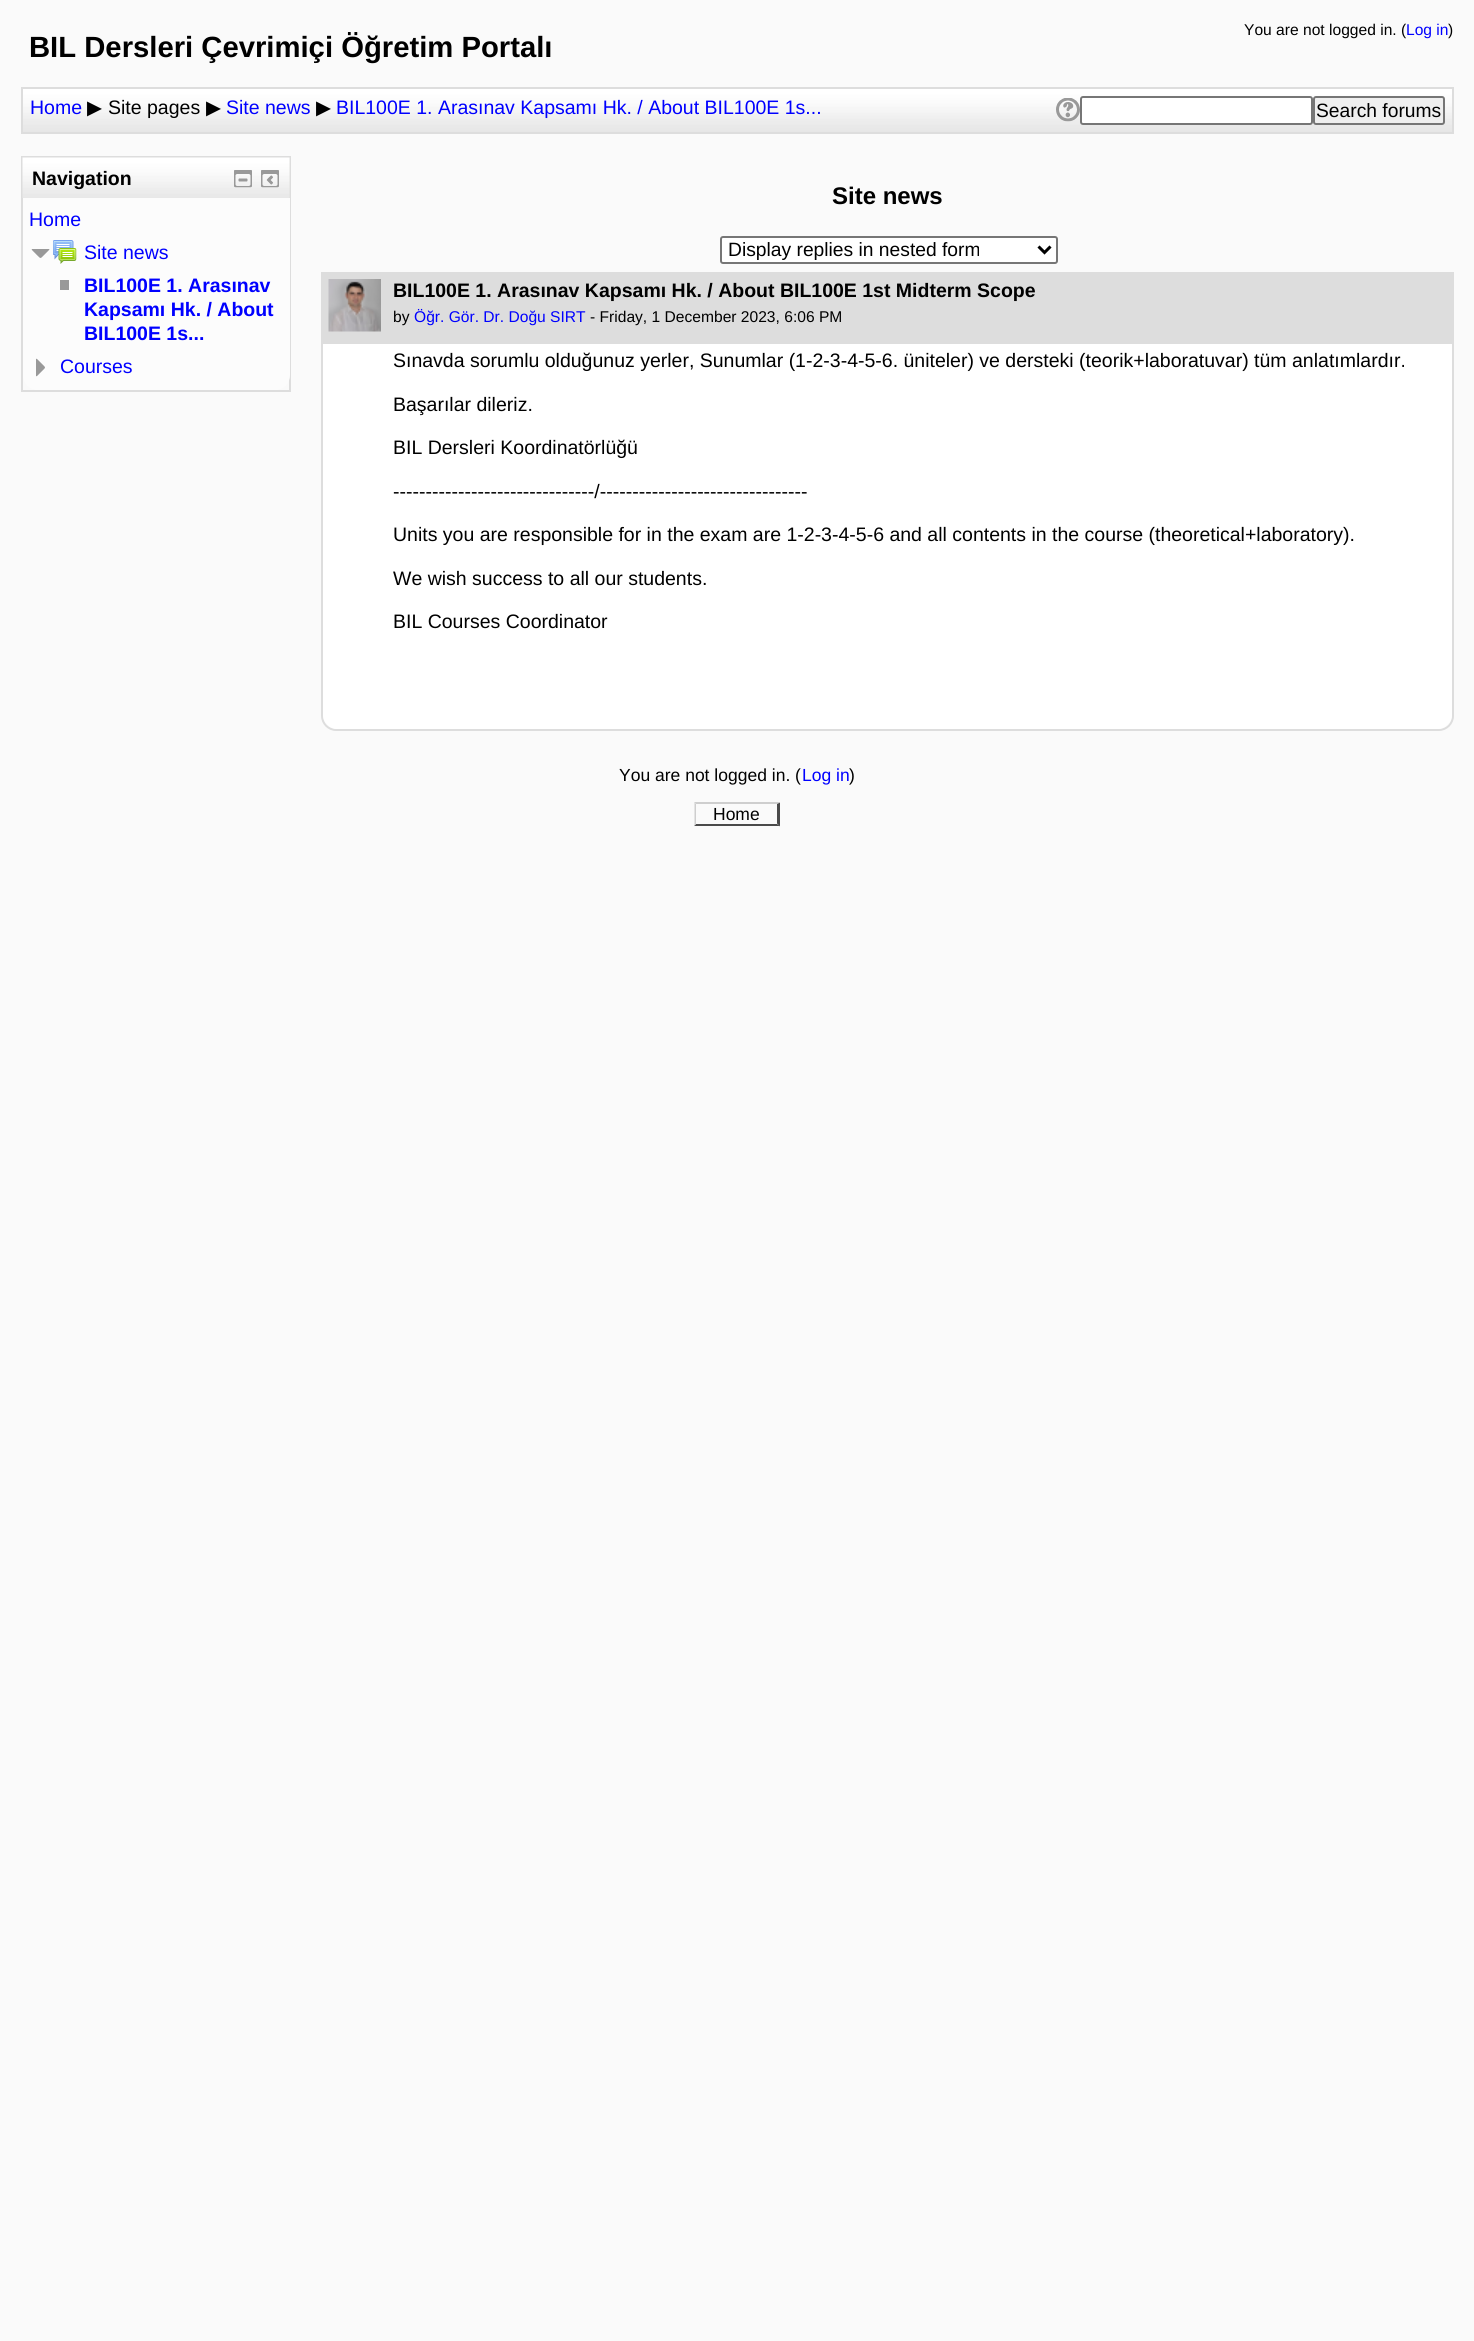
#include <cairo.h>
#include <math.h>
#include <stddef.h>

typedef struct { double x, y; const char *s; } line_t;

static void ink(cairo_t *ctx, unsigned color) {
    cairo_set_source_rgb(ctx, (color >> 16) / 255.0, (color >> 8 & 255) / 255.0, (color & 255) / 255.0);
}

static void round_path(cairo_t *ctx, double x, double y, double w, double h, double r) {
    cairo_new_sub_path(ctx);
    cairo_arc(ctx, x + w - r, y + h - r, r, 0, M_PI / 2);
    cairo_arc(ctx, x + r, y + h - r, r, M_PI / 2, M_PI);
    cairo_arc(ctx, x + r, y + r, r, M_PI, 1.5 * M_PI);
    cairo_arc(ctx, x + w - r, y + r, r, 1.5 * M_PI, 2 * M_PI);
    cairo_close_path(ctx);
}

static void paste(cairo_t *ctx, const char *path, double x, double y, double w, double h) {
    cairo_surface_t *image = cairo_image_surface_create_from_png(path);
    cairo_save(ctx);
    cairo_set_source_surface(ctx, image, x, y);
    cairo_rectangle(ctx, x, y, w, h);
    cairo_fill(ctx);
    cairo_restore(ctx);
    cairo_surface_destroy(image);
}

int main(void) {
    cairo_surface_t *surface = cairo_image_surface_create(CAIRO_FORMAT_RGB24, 1474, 2341);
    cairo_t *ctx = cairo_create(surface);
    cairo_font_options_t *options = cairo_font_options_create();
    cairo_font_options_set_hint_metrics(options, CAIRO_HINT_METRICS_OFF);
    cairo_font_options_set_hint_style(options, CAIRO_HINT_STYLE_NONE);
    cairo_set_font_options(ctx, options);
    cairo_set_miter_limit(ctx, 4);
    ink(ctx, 0xFAFAFA);
    cairo_paint(ctx);
    cairo_select_font_face(ctx, "Liberation Sans", CAIRO_FONT_SLANT_NORMAL, CAIRO_FONT_WEIGHT_BOLD);
    cairo_set_font_size(ctx, 29.25);
    ink(ctx, 0x000000);
    cairo_move_to(ctx, 29, 57);
    cairo_show_text(ctx, "BIL Dersleri Çevrimiçi Öğretim Portalı");
    cairo_select_font_face(ctx, "Liberation Sans", CAIRO_FONT_SLANT_NORMAL, CAIRO_FONT_WEIGHT_NORMAL);
    cairo_set_font_size(ctx, 15.6);
    cairo_move_to(ctx, 1244, 35);
    cairo_show_text(ctx, "You are not logged in. (");
    ink(ctx, 0x0000FF);
    cairo_move_to(ctx, 1406, 35);
    cairo_show_text(ctx, "Log in");
    ink(ctx, 0x000000);
    cairo_move_to(ctx, 1448, 35);
    cairo_show_text(ctx, ")");
    paste(ctx, "media/1.png", 23, 89, 1429, 43);
    cairo_rectangle(ctx, 22, 88, 1431, 45);
    ink(ctx, 0xDDDDDD);
    cairo_stroke(ctx);
    cairo_set_font_size(ctx, 19.5);
    ink(ctx, 0x0000FF);
    cairo_move_to(ctx, 30, 114);
    cairo_show_text(ctx, "Home");
    cairo_select_font_face(ctx, "DejaVu Sans", CAIRO_FONT_SLANT_NORMAL, CAIRO_FONT_WEIGHT_NORMAL);
    ink(ctx, 0x000000);
    cairo_move_to(ctx, 87, 114);
    cairo_show_text(ctx, "▶");
    cairo_select_font_face(ctx, "Liberation Sans", CAIRO_FONT_SLANT_NORMAL, CAIRO_FONT_WEIGHT_NORMAL);
    cairo_move_to(ctx, 108, 114);
    cairo_show_text(ctx, "Site pages");
    cairo_select_font_face(ctx, "DejaVu Sans", CAIRO_FONT_SLANT_NORMAL, CAIRO_FONT_WEIGHT_NORMAL);
    cairo_move_to(ctx, 206, 114);
    cairo_show_text(ctx, "▶");
    cairo_select_font_face(ctx, "Liberation Sans", CAIRO_FONT_SLANT_NORMAL, CAIRO_FONT_WEIGHT_NORMAL);
    ink(ctx, 0x0000FF);
    cairo_move_to(ctx, 226, 114);
    cairo_show_text(ctx, "Site news");
    cairo_select_font_face(ctx, "DejaVu Sans", CAIRO_FONT_SLANT_NORMAL, CAIRO_FONT_WEIGHT_NORMAL);
    ink(ctx, 0x000000);
    cairo_move_to(ctx, 316, 114);
    cairo_show_text(ctx, "▶");
    cairo_select_font_face(ctx, "Liberation Sans", CAIRO_FONT_SLANT_NORMAL, CAIRO_FONT_WEIGHT_NORMAL);
    ink(ctx, 0x0000FF);
    cairo_move_to(ctx, 336, 114);
    cairo_show_text(ctx, "BIL100E 1. Arasınav Kapsamı Hk. / About BIL100E 1s...");
    paste(ctx, "media/2.png", 1056, 98, 24, 24);
    ink(ctx, 0xFFFFFF);
    round_path(ctx, 1081, 97, 231, 27, 2);
    cairo_fill_preserve(ctx);
    ink(ctx, 0x767676);
    cairo_stroke(ctx);
    ink(ctx, 0xEFEFEF);
    round_path(ctx, 1314, 97, 130, 27, 2);
    cairo_fill_preserve(ctx);
    ink(ctx, 0x767676);
    cairo_stroke(ctx);
    cairo_set_font_size(ctx, 19.25);
    ink(ctx, 0x000000);
    cairo_move_to(ctx, 1316, 117);
    cairo_show_text(ctx, "Search forums");
    cairo_rectangle(ctx, 22, 157, 268, 234);
    ink(ctx, 0xDDDDDD);
    cairo_stroke(ctx);
    ink(ctx, 0xE1E1DF);
    cairo_rectangle(ctx, 289, 158, 1, 40);
    cairo_fill(ctx);
    paste(ctx, "media/3.png", 22, 157, 268, 41);
    cairo_select_font_face(ctx, "Liberation Sans", CAIRO_FONT_SLANT_NORMAL, CAIRO_FONT_WEIGHT_BOLD);
    cairo_set_font_size(ctx, 19.5);
    ink(ctx, 0x000000);
    cairo_move_to(ctx, 32, 185);
    cairo_show_text(ctx, "Navigation");
    paste(ctx, "media/4.png", 234, 170, 18, 18);
    paste(ctx, "media/5.png", 261, 170, 18, 18);
    ink(ctx, 0xFCFCFC);
    cairo_new_path(ctx);
    cairo_move_to(ctx, 23, 198);
    cairo_line_to(ctx, 290, 198);
    cairo_line_to(ctx, 290, 375);
    cairo_curve_to(ctx, 290, 383.5, 283.5, 390, 275, 390);
    cairo_line_to(ctx, 38, 390);
    cairo_curve_to(ctx, 29.5, 390, 23, 383.5, 23, 375);
    cairo_close_path(ctx);
    cairo_fill(ctx);
    cairo_select_font_face(ctx, "Liberation Sans", CAIRO_FONT_SLANT_NORMAL, CAIRO_FONT_WEIGHT_NORMAL);
    ink(ctx, 0x0000FF);
    cairo_move_to(ctx, 29, 226);
    cairo_show_text(ctx, "Home");
    paste(ctx, "media/6.png", 31, 249, 19, 9);
    paste(ctx, "media/7.png", 53, 240, 24, 24);
    cairo_move_to(ctx, 84, 259);
    cairo_show_text(ctx, "Site news");
    ink(ctx, 0x999999);
    cairo_rectangle(ctx, 60, 280, 9, 10);
    cairo_fill(ctx);
    cairo_select_font_face(ctx, "Liberation Sans", CAIRO_FONT_SLANT_NORMAL, CAIRO_FONT_WEIGHT_BOLD);
    ink(ctx, 0x0000FF);
    {
        static const line_t items[] = {
            {84, 292, "BIL100E 1. Arasınav"},
            {84, 316, "Kapsamı Hk. / About"},
            {84, 340, "BIL100E 1s..."},
        };
        for (size_t i = 0; i < sizeof items / sizeof *items; i++) {
            cairo_move_to(ctx, items[i].x, items[i].y);
            cairo_show_text(ctx, items[i].s);
        }
    }
    paste(ctx, "media/8.png", 36, 358, 9, 19);
    cairo_select_font_face(ctx, "Liberation Sans", CAIRO_FONT_SLANT_NORMAL, CAIRO_FONT_WEIGHT_NORMAL);
    cairo_move_to(ctx, 60, 373);
    cairo_show_text(ctx, "Courses");
    cairo_select_font_face(ctx, "Liberation Sans", CAIRO_FONT_SLANT_NORMAL, CAIRO_FONT_WEIGHT_BOLD);
    cairo_set_font_size(ctx, 24);
    ink(ctx, 0x000000);
    cairo_move_to(ctx, 832, 204);
    cairo_show_text(ctx, "Site news");
    ink(ctx, 0xFFFFFF);
    round_path(ctx, 721, 237, 336, 26, 2);
    cairo_fill_preserve(ctx);
    ink(ctx, 0x767676);
    cairo_stroke(ctx);
    cairo_new_path(ctx);
    cairo_move_to(ctx, 1038.5, 246.5);
    cairo_line_to(ctx, 1044.5, 252.5);
    cairo_line_to(ctx, 1050.5, 246.5);
    ink(ctx, 0x000000);
    cairo_set_line_width(ctx, 3);
    cairo_stroke(ctx);
    cairo_select_font_face(ctx, "Liberation Sans", CAIRO_FONT_SLANT_NORMAL, CAIRO_FONT_WEIGHT_NORMAL);
    cairo_set_font_size(ctx, 19.25);
    cairo_move_to(ctx, 728, 256);
    cairo_show_text(ctx, "Display replies in nested form");
    cairo_new_path(ctx);
    cairo_move_to(ctx, 322, 273);
    cairo_line_to(ctx, 1453, 273);
    cairo_line_to(ctx, 1453, 716);
    cairo_curve_to(ctx, 1453, 723.5, 1446.5, 730, 1439, 730);
    cairo_line_to(ctx, 336, 730);
    cairo_curve_to(ctx, 328.5, 730, 322, 723.5, 322, 716);
    cairo_close_path(ctx);
    ink(ctx, 0xDDDDDD);
    cairo_set_line_width(ctx, 2);
    cairo_stroke(ctx);
    cairo_rectangle(ctx, 323, 274, 1129, 70);
    cairo_fill(ctx);
    paste(ctx, "media/9.png", 328, 279, 53, 53);
    cairo_select_font_face(ctx, "Liberation Sans", CAIRO_FONT_SLANT_NORMAL, CAIRO_FONT_WEIGHT_BOLD);
    cairo_set_font_size(ctx, 19.5);
    ink(ctx, 0x000000);
    cairo_move_to(ctx, 393, 297);
    cairo_show_text(ctx, "BIL100E 1. Arasınav Kapsamı Hk. / About BIL100E 1st Midterm Scope");
    cairo_select_font_face(ctx, "Liberation Sans", CAIRO_FONT_SLANT_NORMAL, CAIRO_FONT_WEIGHT_NORMAL);
    cairo_set_font_size(ctx, 15.6);
    cairo_move_to(ctx, 393, 322);
    cairo_show_text(ctx, "by");
    ink(ctx, 0x0000FF);
    cairo_move_to(ctx, 414, 322);
    cairo_show_text(ctx, "Öğr. Gör. Dr. Doğu SIRT");
    ink(ctx, 0x000000);
    cairo_move_to(ctx, 590, 322);
    cairo_show_text(ctx, "- Friday, 1 December 2023, 6:06 PM");
    ink(ctx, 0xFFFFFF);
    cairo_rectangle(ctx, 323, 344, 1129, 361);
    cairo_fill(ctx);
    cairo_set_font_size(ctx, 19.5);
    ink(ctx, 0x000000);
    {
        static const line_t items[] = {
            {393, 367, "Sınavda sorumlu olduğunuz yerler, Sunumlar (1-2-3-4-5-6. üniteler) ve dersteki (teorik+laboratuvar) tüm anlatımlardır."},
            {393, 411, "Başarılar dileriz."},
            {393, 454, "BIL Dersleri Koordinatörlüğü"},
            {393, 498, "-------------------------------/--------------------------------"},
            {393, 541, "Units you are responsible for in the exam are 1-2-3-4-5-6 and all contents in the course (theoretical+laboratory)."},
            {393, 585, "We wish success to all our students."},
            {393, 628, "BIL Courses Coordinator"},
        };
        for (size_t i = 0; i < sizeof items / sizeof *items; i++) {
            cairo_move_to(ctx, items[i].x, items[i].y);
            cairo_show_text(ctx, items[i].s);
        }
    }
    ink(ctx, 0xFFFFFF);
    cairo_new_path(ctx);
    cairo_move_to(ctx, 323, 705);
    cairo_line_to(ctx, 1452, 705);
    cairo_line_to(ctx, 1452, 714);
    cairo_curve_to(ctx, 1452, 722.5, 1445.5, 729, 1437, 729);
    cairo_line_to(ctx, 338, 729);
    cairo_curve_to(ctx, 329.5, 729, 323, 722.5, 323, 714);
    cairo_close_path(ctx);
    cairo_fill(ctx);
    cairo_set_font_size(ctx, 17.5);
    ink(ctx, 0x000000);
    cairo_move_to(ctx, 619, 781);
    cairo_show_text(ctx, "You are not logged in. (");
    ink(ctx, 0x0000FF);
    cairo_move_to(ctx, 802, 781);
    cairo_show_text(ctx, "Log in");
    ink(ctx, 0x000000);
    cairo_move_to(ctx, 849, 781);
    cairo_show_text(ctx, ")");
    cairo_move_to(ctx, 713, 820);
    cairo_show_text(ctx, "Home");
    ink(ctx, 0xCECECE);
    cairo_new_path(ctx);
    cairo_move_to(ctx, 694, 802);
    cairo_line_to(ctx, 780, 802);
    cairo_line_to(ctx, 777, 804);
    cairo_line_to(ctx, 696, 804);
    cairo_close_path(ctx);
    cairo_fill(ctx);
    ink(ctx, 0x4A4A4A);
    cairo_new_path(ctx);
    cairo_move_to(ctx, 780, 802.5);
    cairo_line_to(ctx, 780, 826.5);
    cairo_line_to(ctx, 777, 823.5);
    cairo_line_to(ctx, 777, 804);
    cairo_close_path(ctx);
    cairo_fill(ctx);
    cairo_new_path(ctx);
    cairo_move_to(ctx, 780, 826);
    cairo_line_to(ctx, 694, 826);
    cairo_line_to(ctx, 696, 824);
    cairo_line_to(ctx, 777, 824);
    cairo_close_path(ctx);
    cairo_fill(ctx);
    ink(ctx, 0xCECECE);
    cairo_new_path(ctx);
    cairo_move_to(ctx, 694.5, 826.5);
    cairo_line_to(ctx, 694.5, 802.5);
    cairo_line_to(ctx, 696, 804);
    cairo_line_to(ctx, 696, 823.5);
    cairo_close_path(ctx);
    cairo_fill(ctx);
    cairo_surface_write_to_png(surface, "image.png");
    cairo_font_options_destroy(options);
    cairo_destroy(ctx);
    cairo_surface_destroy(surface);
    return 0;
}
